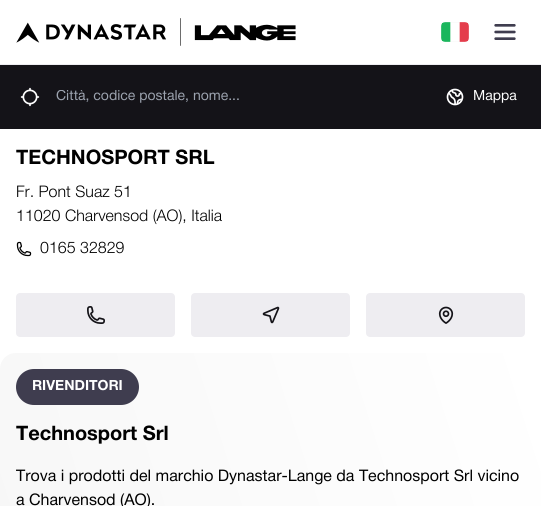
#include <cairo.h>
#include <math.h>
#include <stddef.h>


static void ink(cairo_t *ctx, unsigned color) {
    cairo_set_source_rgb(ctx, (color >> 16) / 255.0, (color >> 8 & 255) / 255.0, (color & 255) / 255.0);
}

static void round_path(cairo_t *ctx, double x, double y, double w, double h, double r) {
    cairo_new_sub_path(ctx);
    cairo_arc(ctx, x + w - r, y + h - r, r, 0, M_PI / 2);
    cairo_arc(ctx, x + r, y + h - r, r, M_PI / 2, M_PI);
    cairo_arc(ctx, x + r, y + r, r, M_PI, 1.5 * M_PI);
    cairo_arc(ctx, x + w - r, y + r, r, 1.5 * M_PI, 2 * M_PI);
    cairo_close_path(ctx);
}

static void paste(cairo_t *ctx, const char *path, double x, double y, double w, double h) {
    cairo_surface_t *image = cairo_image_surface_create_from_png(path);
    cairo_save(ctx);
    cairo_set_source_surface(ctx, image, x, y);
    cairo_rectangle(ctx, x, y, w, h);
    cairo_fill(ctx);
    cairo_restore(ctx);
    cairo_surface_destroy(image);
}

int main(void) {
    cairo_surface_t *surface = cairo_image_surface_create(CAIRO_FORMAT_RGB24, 541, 506);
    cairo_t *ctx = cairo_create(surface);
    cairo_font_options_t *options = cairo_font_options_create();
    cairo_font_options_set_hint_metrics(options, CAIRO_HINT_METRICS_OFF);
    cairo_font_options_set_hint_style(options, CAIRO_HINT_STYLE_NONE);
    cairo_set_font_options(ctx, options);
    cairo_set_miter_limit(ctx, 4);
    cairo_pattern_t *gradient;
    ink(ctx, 0xFFFFFF);
    cairo_paint(ctx);
    ink(ctx, 0xEEEDF1);
    cairo_rectangle(ctx, 0, 64, 541, 1);
    cairo_fill(ctx);
    paste(ctx, "media/1.png", 16, 18, 280, 28);
    paste(ctx, "media/2.png", 441, 22, 28, 20);
    paste(ctx, "media/3.png", 494, 24, 22, 16);
    ink(ctx, 0x141318);
    cairo_rectangle(ctx, 0, 65, 541, 64);
    cairo_fill(ctx);
    paste(ctx, "media/4.png", 20, 87, 20, 20);
    cairo_save(ctx);
    cairo_rectangle(ctx, 56, 90, 312, 14);
    cairo_clip(ctx);
    cairo_select_font_face(ctx, "Helvetica Neue", CAIRO_FONT_SLANT_NORMAL, CAIRO_FONT_WEIGHT_NORMAL);
    cairo_set_font_size(ctx, 14);
    ink(ctx, 0x9CA3AF);
    cairo_move_to(ctx, 56, 100);
    cairo_show_text(ctx, "Città, codice postale, nome...");
    cairo_restore(ctx);
    paste(ctx, "media/5.png", 446, 88, 18, 18);
    cairo_select_font_face(ctx, "Helvetica Neue", CAIRO_FONT_SLANT_NORMAL, CAIRO_FONT_WEIGHT_NORMAL);
    cairo_set_font_size(ctx, 14);
    ink(ctx, 0xFFFFFF);
    cairo_move_to(ctx, 473, 100);
    cairo_show_text(ctx, "Mappa");
    cairo_select_font_face(ctx, "Helvetica Neue", CAIRO_FONT_SLANT_NORMAL, CAIRO_FONT_WEIGHT_BOLD);
    cairo_set_font_size(ctx, 20);
    ink(ctx, 0x000000);
    cairo_move_to(ctx, 16, 164);
    cairo_show_text(ctx, "TECHNOSPORT SRL");
    cairo_select_font_face(ctx, "Helvetica Neue Light", CAIRO_FONT_SLANT_NORMAL, CAIRO_FONT_WEIGHT_NORMAL);
    cairo_set_font_size(ctx, 16);
    cairo_move_to(ctx, 16, 197);
    cairo_show_text(ctx, "Fr. Pont Suaz 51");
    cairo_move_to(ctx, 16, 221);
    cairo_show_text(ctx, "11020 Charvensod (AO), Italia");
    paste(ctx, "media/6.png", 16, 241, 16, 16);
    cairo_move_to(ctx, 40, 253);
    cairo_show_text(ctx, "0165 32829");
    ink(ctx, 0xEEEDF1);
    round_path(ctx, 16, 293, 159, 44, 4);
    cairo_fill(ctx);
    paste(ctx, "media/7.png", 87, 306, 18, 18);
    round_path(ctx, 191, 293, 159, 44, 4);
    cairo_fill(ctx);
    paste(ctx, "media/8.png", 262, 306, 18, 18);
    round_path(ctx, 366, 293, 159, 44, 4);
    cairo_fill(ctx);
    paste(ctx, "media/9.png", 438, 306, 16, 18);
    gradient = cairo_pattern_create_linear(-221, 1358, 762, 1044);
    cairo_pattern_add_color_stop_rgba(gradient, 0, 0.945, 0.945, 0.945, 1);
    cairo_pattern_add_color_stop_rgba(gradient, 1, 1, 1, 1, 1);
    cairo_set_source(ctx, gradient);
    cairo_pattern_destroy(gradient);
    cairo_new_path(ctx);
    cairo_move_to(ctx, 16, 353);
    cairo_line_to(ctx, 525, 353);
    cairo_curve_to(ctx, 534, 353, 541, 360, 541, 369);
    cairo_line_to(ctx, 541, 506);
    cairo_line_to(ctx, 0, 506);
    cairo_line_to(ctx, 0, 369);
    cairo_curve_to(ctx, 0, 360, 7, 353, 16, 353);
    cairo_close_path(ctx);
    cairo_fill(ctx);
    ink(ctx, 0x3F3D4F);
    round_path(ctx, 16, 369, 123, 36, 18);
    cairo_fill(ctx);
    cairo_select_font_face(ctx, "Helvetica Neue", CAIRO_FONT_SLANT_NORMAL, CAIRO_FONT_WEIGHT_BOLD);
    cairo_set_font_size(ctx, 14);
    ink(ctx, 0xFFFFFF);
    cairo_move_to(ctx, 32, 390);
    cairo_show_text(ctx, "RIVENDITORI");
    cairo_set_font_size(ctx, 20);
    ink(ctx, 0x000000);
    cairo_move_to(ctx, 16, 440);
    cairo_show_text(ctx, "Technosport Srl");
    cairo_select_font_face(ctx, "Helvetica Neue", CAIRO_FONT_SLANT_NORMAL, CAIRO_FONT_WEIGHT_NORMAL);
    cairo_set_font_size(ctx, 16);
    cairo_move_to(ctx, 16, 481);
    cairo_show_text(ctx, "Trova i prodotti del marchio Dynastar-Lange da Technosport Srl vicino");
    cairo_move_to(ctx, 16, 505);
    cairo_show_text(ctx, "a Charvensod (AO).");
    cairo_surface_write_to_png(surface, "image.png");
    cairo_font_options_destroy(options);
    cairo_destroy(ctx);
    cairo_surface_destroy(surface);
    return 0;
}
